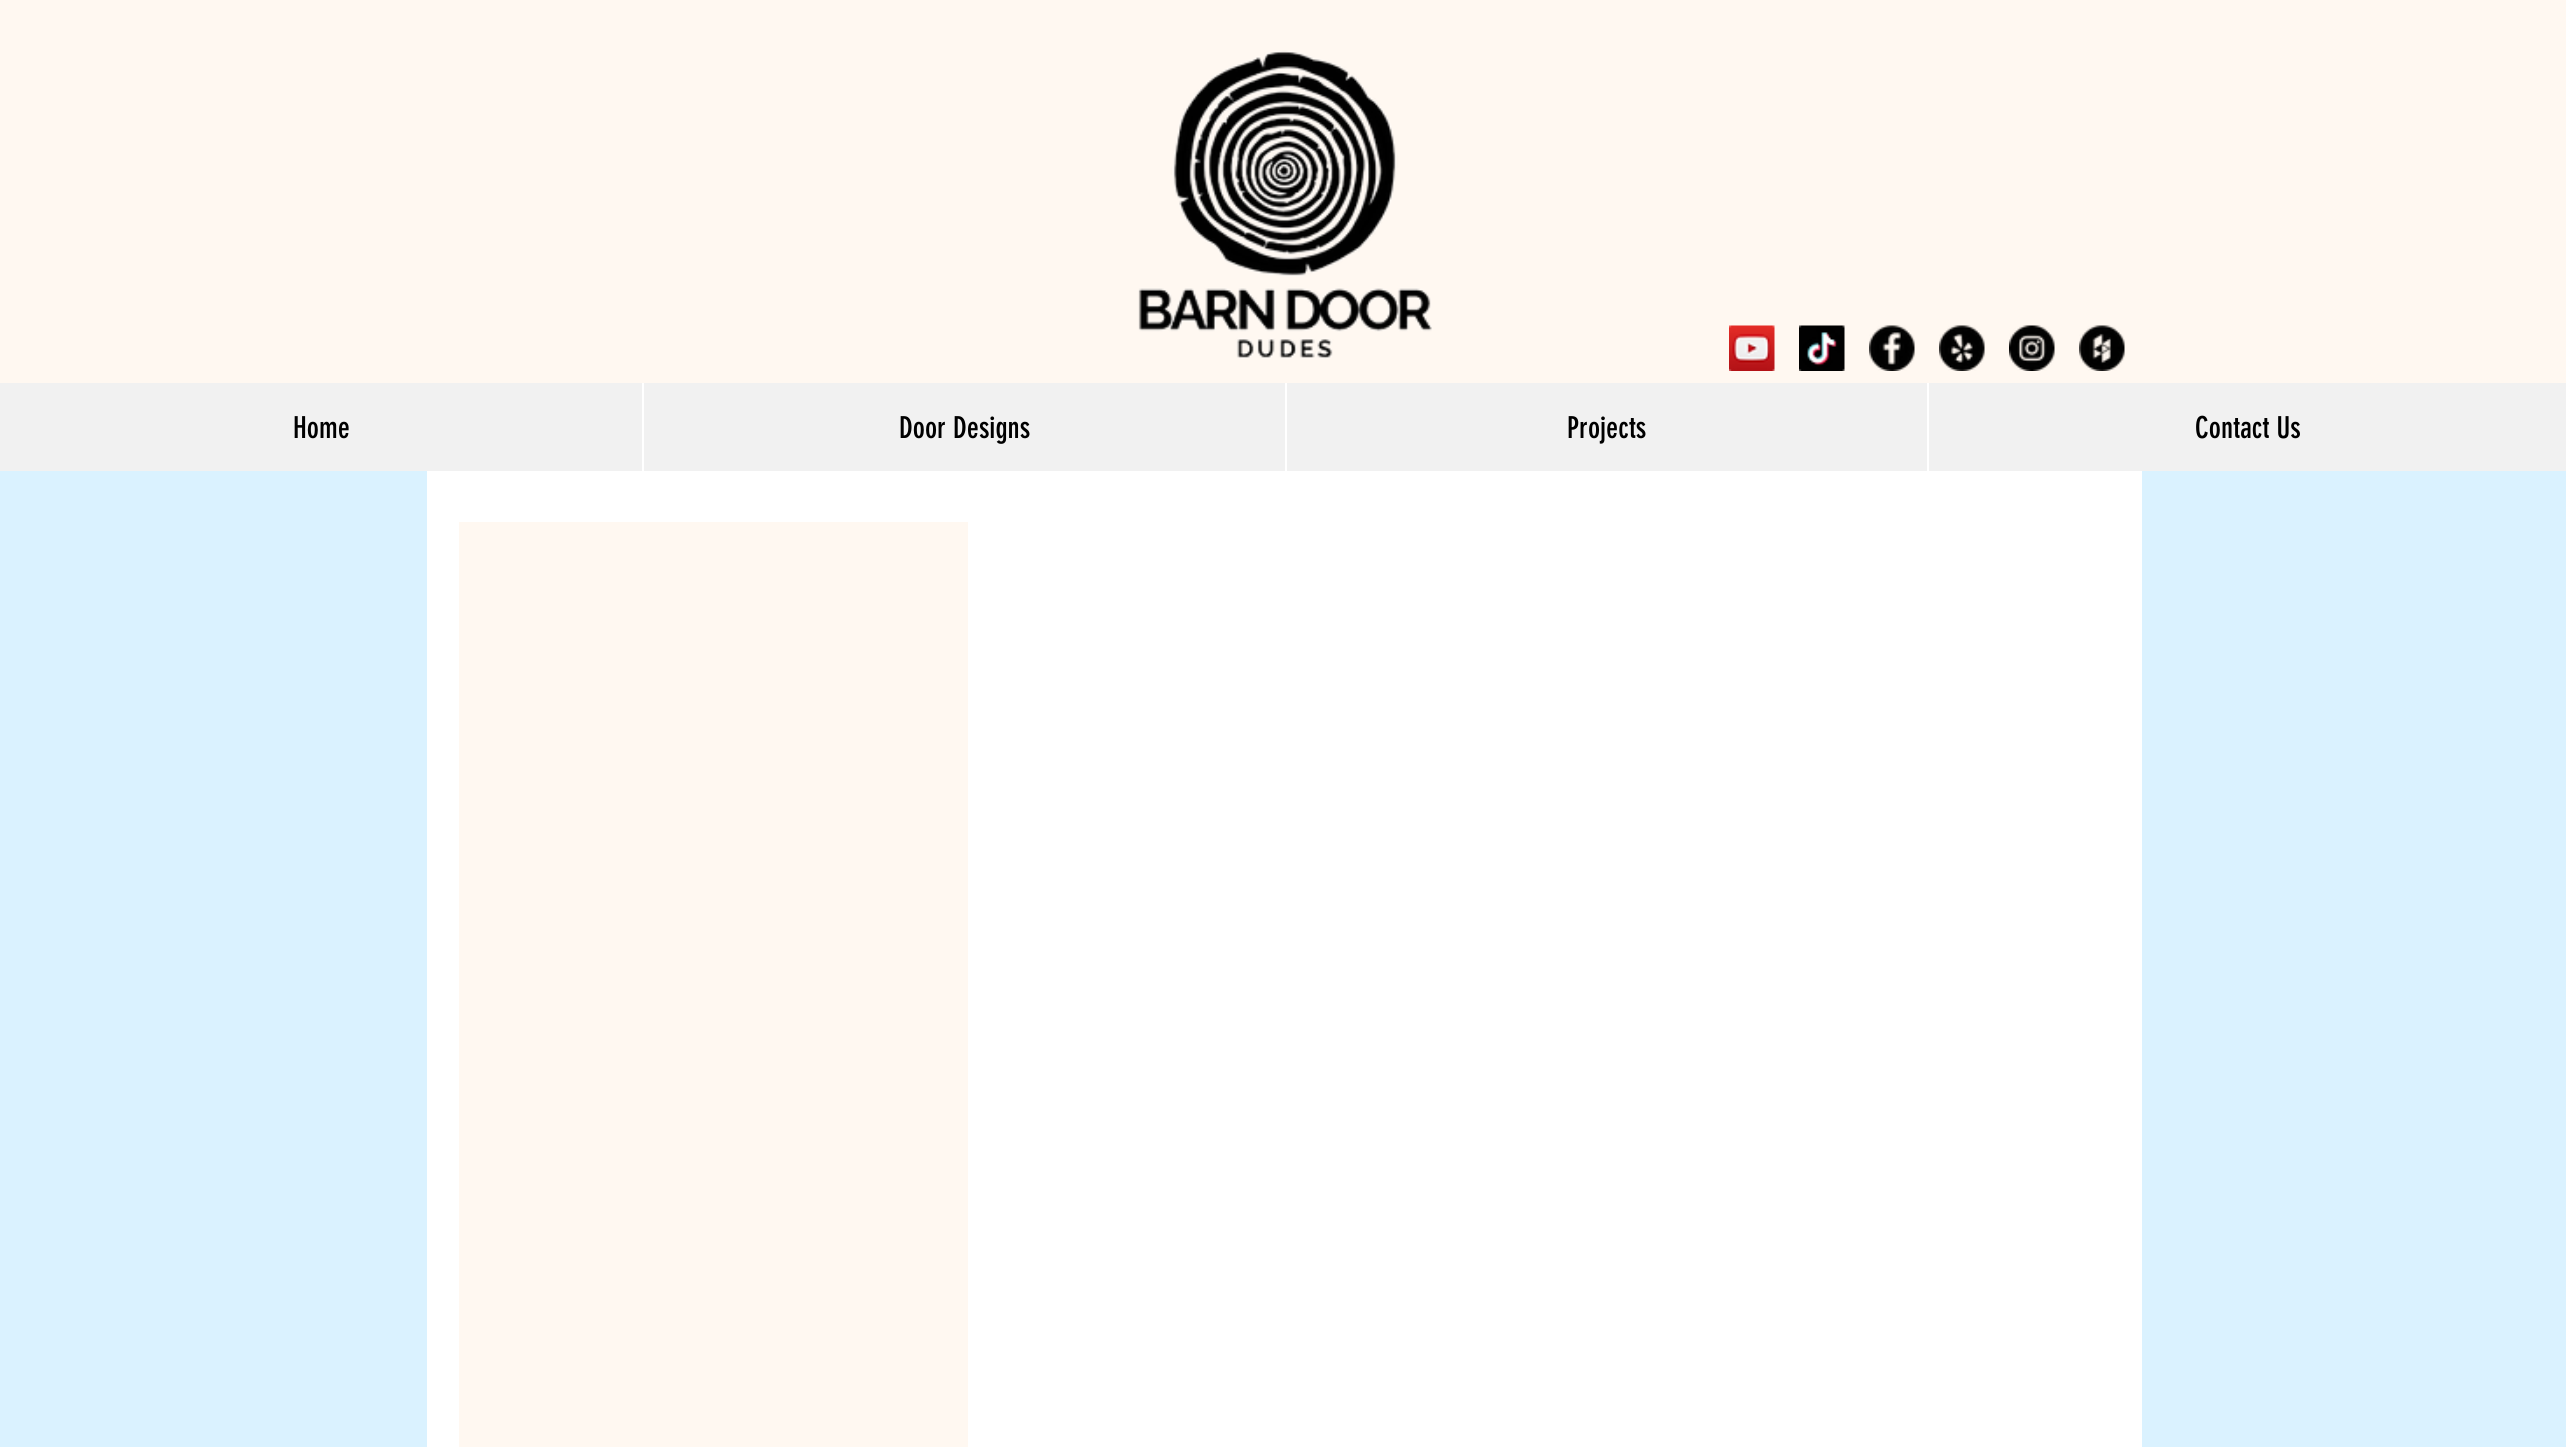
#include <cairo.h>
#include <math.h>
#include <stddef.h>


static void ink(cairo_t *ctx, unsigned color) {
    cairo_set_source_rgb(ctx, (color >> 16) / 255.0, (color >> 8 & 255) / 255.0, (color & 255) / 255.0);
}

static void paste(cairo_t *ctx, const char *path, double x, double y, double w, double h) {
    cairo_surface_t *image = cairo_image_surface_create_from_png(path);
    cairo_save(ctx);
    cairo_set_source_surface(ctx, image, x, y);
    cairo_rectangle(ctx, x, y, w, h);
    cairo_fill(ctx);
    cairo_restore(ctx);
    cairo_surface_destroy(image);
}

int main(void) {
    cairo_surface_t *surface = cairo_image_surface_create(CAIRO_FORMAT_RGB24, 2566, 1447);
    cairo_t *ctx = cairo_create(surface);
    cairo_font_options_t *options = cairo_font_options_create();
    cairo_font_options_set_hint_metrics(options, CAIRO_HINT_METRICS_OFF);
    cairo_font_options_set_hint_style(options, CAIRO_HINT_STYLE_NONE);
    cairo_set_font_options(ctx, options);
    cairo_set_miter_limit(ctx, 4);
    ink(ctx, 0xDAF2FF);
    cairo_paint(ctx);
    ink(ctx, 0xFFF8F1);
    cairo_rectangle(ctx, 0, 0, 2566, 383);
    cairo_fill(ctx);
    paste(ctx, "media/1.png", 1138, 50, 294, 309);
    paste(ctx, "media/2.png", 1729, 325, 46, 46);
    paste(ctx, "media/3.png", 1799, 325, 46, 46);
    paste(ctx, "media/4.png", 1869, 325, 46, 46);
    paste(ctx, "media/5.png", 1939, 325, 46, 46);
    paste(ctx, "media/6.png", 2009, 325, 46, 46);
    paste(ctx, "media/7.png", 2079, 325, 46, 46);
    ink(ctx, 0xF1F1F1);
    cairo_rectangle(ctx, 0, 383, 2566, 88);
    cairo_fill(ctx);
    cairo_select_font_face(ctx, "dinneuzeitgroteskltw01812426", CAIRO_FONT_SLANT_NORMAL, CAIRO_FONT_WEIGHT_NORMAL);
    cairo_set_font_size(ctx, 29.75);
    ink(ctx, 0x000000);
    cairo_move_to(ctx, 293, 438);
    cairo_show_text(ctx, "Home");
    ink(ctx, 0xFFFFFF);
    cairo_rectangle(ctx, 642, 383, 2, 88);
    cairo_fill(ctx);
    ink(ctx, 0x000000);
    cairo_move_to(ctx, 899, 438);
    cairo_show_text(ctx, "Door Designs");
    ink(ctx, 0xFFFFFF);
    cairo_rectangle(ctx, 1285, 383, 2, 88);
    cairo_fill(ctx);
    ink(ctx, 0x000000);
    cairo_move_to(ctx, 1567, 438);
    cairo_show_text(ctx, "Projects");
    ink(ctx, 0xFFFFFF);
    cairo_rectangle(ctx, 1927, 383, 2, 88);
    cairo_fill(ctx);
    ink(ctx, 0x000000);
    cairo_move_to(ctx, 2195, 438);
    cairo_show_text(ctx, "Contact Us");
    ink(ctx, 0xFFFFFF);
    cairo_rectangle(ctx, 427, 471, 1715, 976);
    cairo_fill(ctx);
    ink(ctx, 0xFFF8F1);
    cairo_rectangle(ctx, 459, 522, 509, 925);
    cairo_fill(ctx);
    cairo_surface_write_to_png(surface, "image.png");
    cairo_font_options_destroy(options);
    cairo_destroy(ctx);
    cairo_surface_destroy(surface);
    return 0;
}
